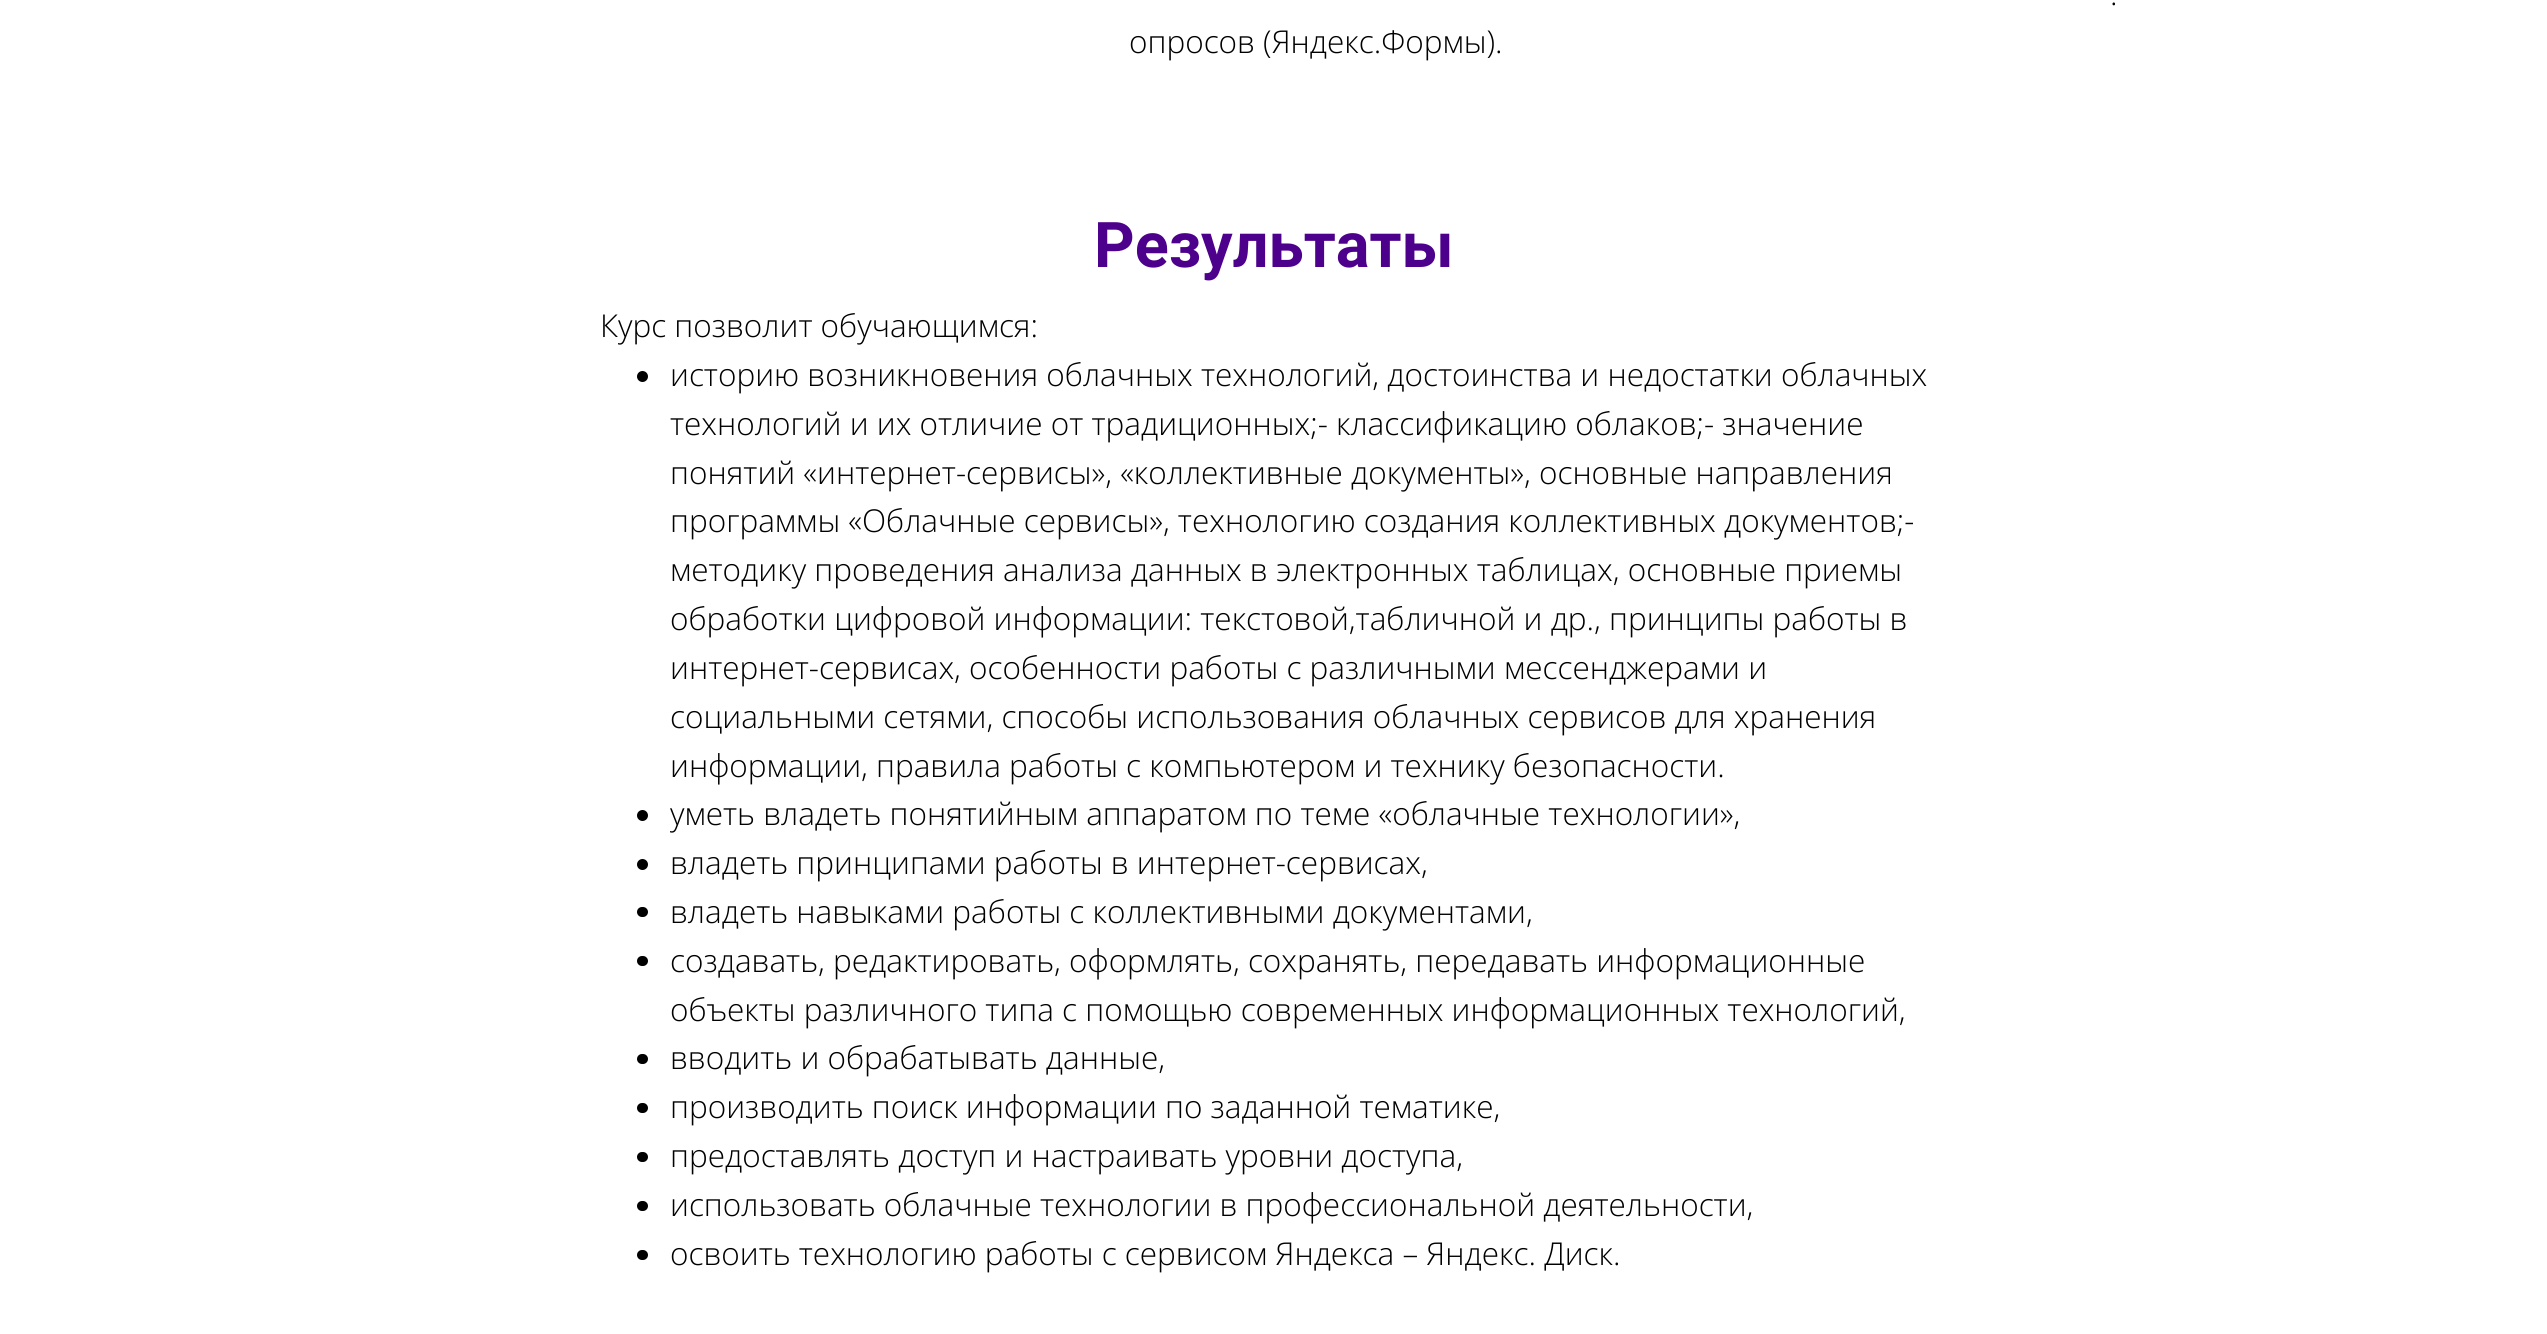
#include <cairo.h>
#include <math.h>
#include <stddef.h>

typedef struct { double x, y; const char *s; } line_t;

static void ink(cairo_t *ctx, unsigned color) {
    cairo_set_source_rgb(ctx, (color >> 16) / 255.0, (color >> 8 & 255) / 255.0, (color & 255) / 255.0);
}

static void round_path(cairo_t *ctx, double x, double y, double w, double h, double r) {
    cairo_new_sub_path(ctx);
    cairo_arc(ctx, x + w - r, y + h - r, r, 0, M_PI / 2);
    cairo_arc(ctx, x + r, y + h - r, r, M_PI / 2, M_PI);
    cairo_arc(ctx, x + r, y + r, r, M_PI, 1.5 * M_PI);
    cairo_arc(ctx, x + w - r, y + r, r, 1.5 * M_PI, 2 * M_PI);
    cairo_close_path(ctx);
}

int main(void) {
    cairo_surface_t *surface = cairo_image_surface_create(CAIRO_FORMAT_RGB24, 2547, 1334);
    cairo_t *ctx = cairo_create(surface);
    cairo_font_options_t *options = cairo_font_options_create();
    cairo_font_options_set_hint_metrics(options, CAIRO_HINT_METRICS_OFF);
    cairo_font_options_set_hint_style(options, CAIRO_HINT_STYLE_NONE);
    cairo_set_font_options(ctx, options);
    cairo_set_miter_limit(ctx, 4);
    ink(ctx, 0xFFFFFF);
    cairo_paint(ctx);
    cairo_select_font_face(ctx, "Open Sans Light", CAIRO_FONT_SLANT_NORMAL, CAIRO_FONT_WEIGHT_NORMAL);
    cairo_set_font_size(ctx, 31.5);
    ink(ctx, 0x000000);
    cairo_move_to(ctx, 2110, 5);
    cairo_show_text(ctx, ".");
    cairo_move_to(ctx, 1129, 53);
    cairo_show_text(ctx, "опросов (Яндекс.Формы).");
    cairo_select_font_face(ctx, "Roboto", CAIRO_FONT_SLANT_NORMAL, CAIRO_FONT_WEIGHT_BOLD);
    cairo_set_font_size(ctx, 63);
    ink(ctx, 0x4D008C);
    cairo_move_to(ctx, 1094, 267);
    cairo_show_text(ctx, "Результаты");
    cairo_select_font_face(ctx, "Open Sans Light", CAIRO_FONT_SLANT_NORMAL, CAIRO_FONT_WEIGHT_NORMAL);
    cairo_set_font_size(ctx, 31.5);
    ink(ctx, 0x000000);
    cairo_move_to(ctx, 600, 337);
    cairo_show_text(ctx, "Курс позволит обучающимся:");
    cairo_new_path(ctx);
    cairo_arc(ctx, 642.5, 376.5, 5.5, 0, 2 * M_PI);
    cairo_fill(ctx);
    {
        static const line_t items[] = {
            {670, 386, "историю возникновения облачных технологий, достоинства и недостатки облачных"},
            {670, 435, "технологий и их отличие от традиционных;- классификацию облаков;- значение"},
            {670, 484, "понятий «интернет-сервисы», «коллективные документы», основные направления"},
            {670, 532, "программы «Облачные сервисы», технологию создания коллективных документов;-"},
            {670, 581, "методику проведения анализа данных в электронных таблицах, основные приемы"},
            {670, 630, "обработки цифровой информации: текстовой,табличной и др., принципы работы в"},
            {670, 679, "интернет-сервисах, особенности работы с различными мессенджерами и"},
            {670, 728, "социальными сетями, способы использования облачных сервисов для хранения"},
            {670, 777, "информации, правила работы с компьютером и технику безопасности."},
        };
        for (size_t i = 0; i < sizeof items / sizeof *items; i++) {
            cairo_move_to(ctx, items[i].x, items[i].y);
            cairo_show_text(ctx, items[i].s);
        }
    }
    cairo_new_path(ctx);
    cairo_arc(ctx, 642.5, 815.5, 5.5, 0, 2 * M_PI);
    cairo_fill(ctx);
    cairo_move_to(ctx, 670, 825);
    cairo_show_text(ctx, "уметь владеть понятийным аппаратом по теме «облачные технологии»,");
    cairo_new_path(ctx);
    cairo_arc(ctx, 642.5, 864.5, 5.5, 0, 2 * M_PI);
    cairo_fill(ctx);
    cairo_move_to(ctx, 670, 874);
    cairo_show_text(ctx, "владеть принципами работы в интернет-сервисах,");
    round_path(ctx, 637, 907, 11, 10, 5);
    cairo_fill(ctx);
    cairo_move_to(ctx, 670, 923);
    cairo_show_text(ctx, "владеть навыками работы с коллективными документами,");
    round_path(ctx, 637, 956, 11, 10, 5);
    cairo_fill(ctx);
    cairo_move_to(ctx, 670, 972);
    cairo_show_text(ctx, "создавать, редактировать, оформлять, сохранять, передавать информационные");
    cairo_move_to(ctx, 670, 1021);
    cairo_show_text(ctx, "объекты различного типа с помощью современных информационных технологий,");
    round_path(ctx, 637, 1054, 11, 10, 5);
    cairo_fill(ctx);
    cairo_move_to(ctx, 670, 1069);
    cairo_show_text(ctx, "вводить и обрабатывать данные,");
    round_path(ctx, 637, 1103, 11, 10, 5);
    cairo_fill(ctx);
    cairo_move_to(ctx, 670, 1118);
    cairo_show_text(ctx, "производить поиск информации по заданной тематике,");
    round_path(ctx, 637, 1152, 11, 10, 5);
    cairo_fill(ctx);
    cairo_move_to(ctx, 670, 1167);
    cairo_show_text(ctx, "предоставлять доступ и настраивать уровни доступа,");
    round_path(ctx, 637, 1201, 11, 10, 5);
    cairo_fill(ctx);
    cairo_move_to(ctx, 670, 1216);
    cairo_show_text(ctx, "использовать облачные технологии в профессиональной деятельности,");
    round_path(ctx, 637, 1250, 11, 10, 5);
    cairo_fill(ctx);
    cairo_move_to(ctx, 670, 1265);
    cairo_show_text(ctx, "освоить технологию работы с сервисом Яндекса – Яндекс. Диск.");
    cairo_surface_write_to_png(surface, "image.png");
    cairo_font_options_destroy(options);
    cairo_destroy(ctx);
    cairo_surface_destroy(surface);
    return 0;
}
